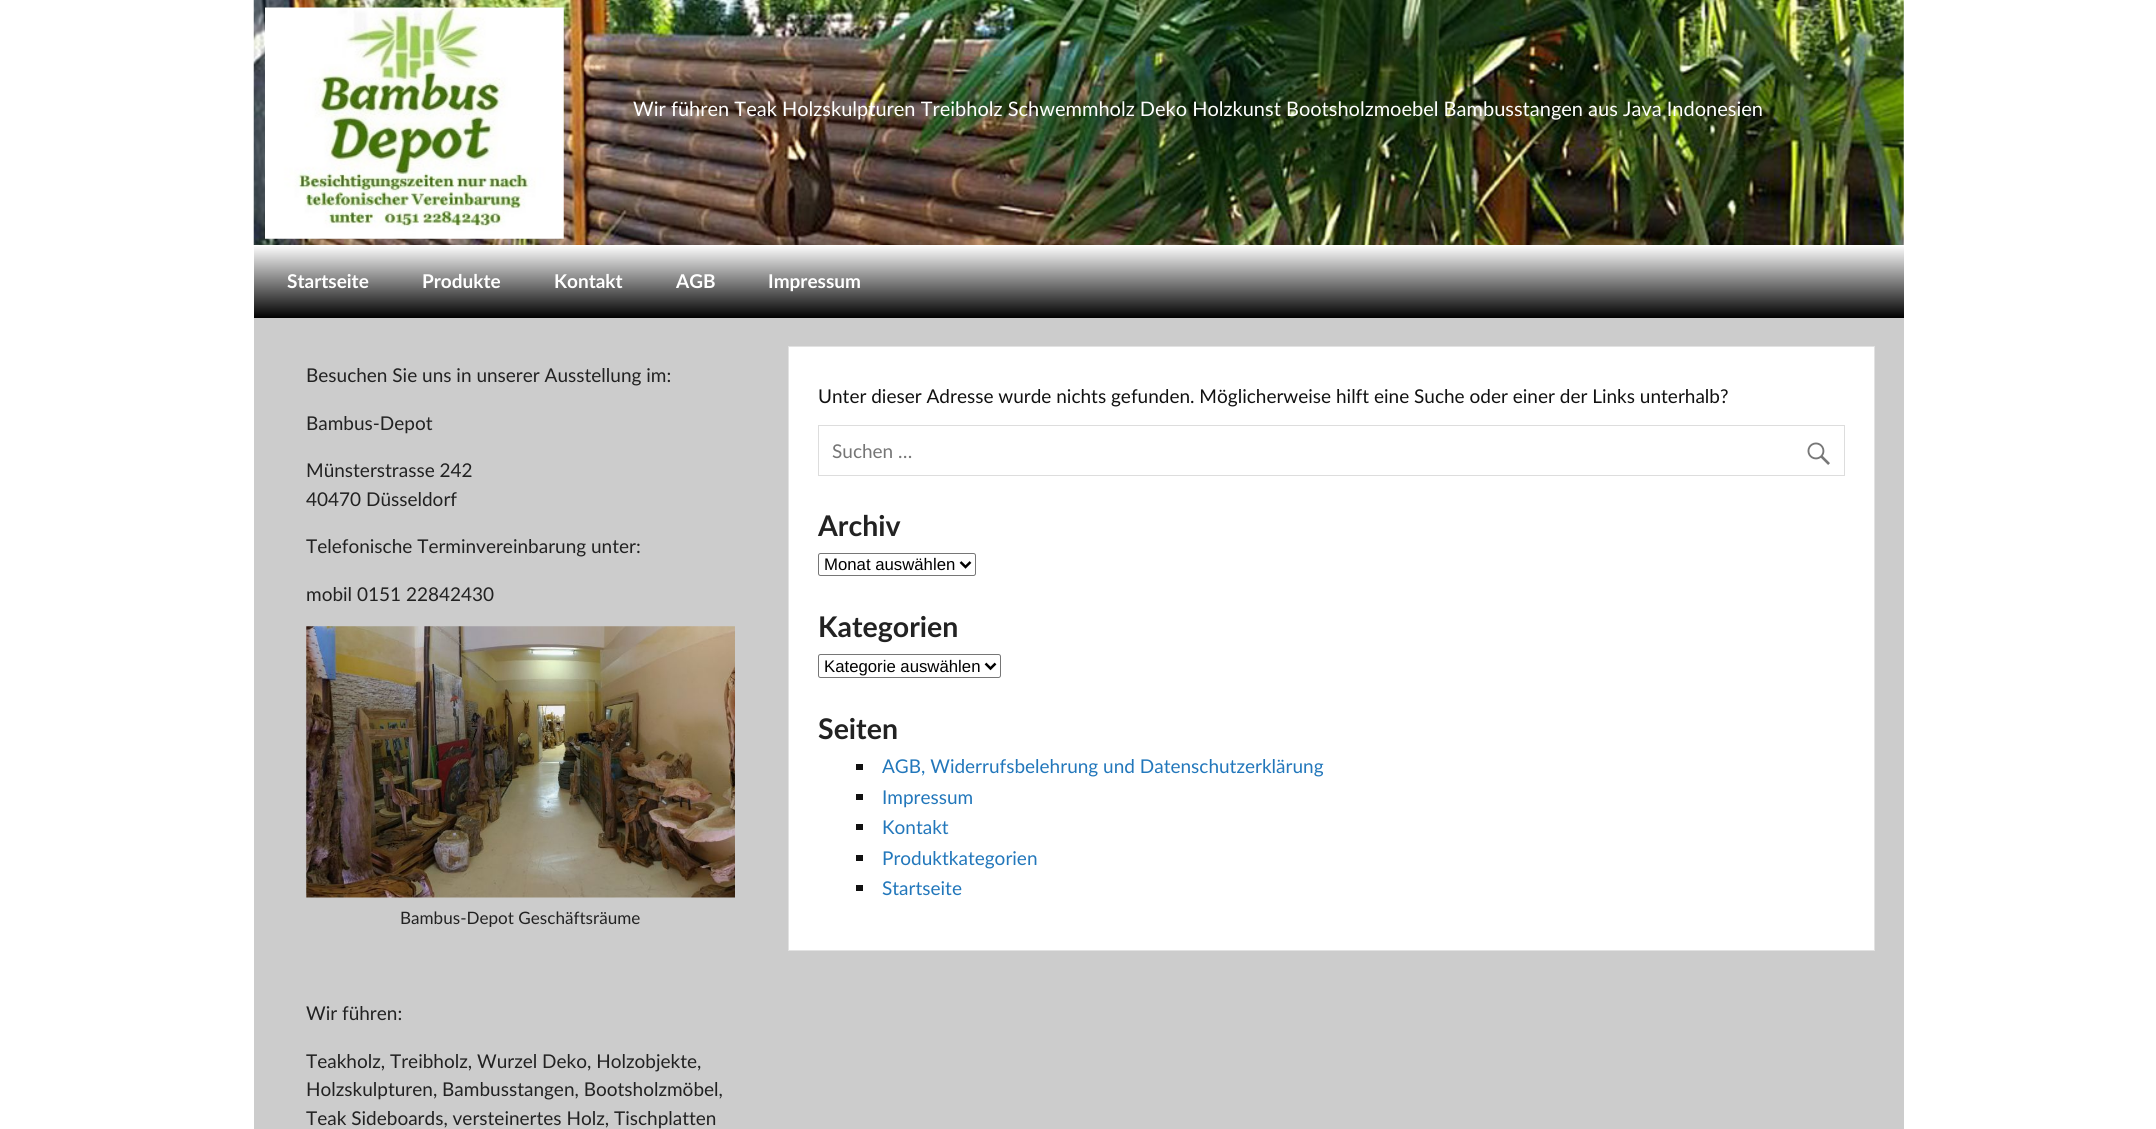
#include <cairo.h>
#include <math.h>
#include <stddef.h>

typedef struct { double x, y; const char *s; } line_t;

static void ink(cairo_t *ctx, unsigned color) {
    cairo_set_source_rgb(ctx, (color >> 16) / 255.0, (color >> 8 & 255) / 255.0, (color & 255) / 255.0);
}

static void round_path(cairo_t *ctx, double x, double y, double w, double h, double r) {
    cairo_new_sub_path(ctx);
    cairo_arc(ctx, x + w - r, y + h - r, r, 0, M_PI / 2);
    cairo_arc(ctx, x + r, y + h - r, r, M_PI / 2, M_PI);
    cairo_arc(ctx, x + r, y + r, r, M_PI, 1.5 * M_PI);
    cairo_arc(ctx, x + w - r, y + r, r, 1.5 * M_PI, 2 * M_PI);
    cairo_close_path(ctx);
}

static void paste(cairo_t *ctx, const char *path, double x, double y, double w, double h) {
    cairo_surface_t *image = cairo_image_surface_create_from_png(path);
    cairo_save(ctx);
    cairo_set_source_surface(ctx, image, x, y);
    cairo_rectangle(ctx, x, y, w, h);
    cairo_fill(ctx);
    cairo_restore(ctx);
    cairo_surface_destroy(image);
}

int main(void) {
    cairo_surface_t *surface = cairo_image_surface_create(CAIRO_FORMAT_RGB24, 2156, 1129);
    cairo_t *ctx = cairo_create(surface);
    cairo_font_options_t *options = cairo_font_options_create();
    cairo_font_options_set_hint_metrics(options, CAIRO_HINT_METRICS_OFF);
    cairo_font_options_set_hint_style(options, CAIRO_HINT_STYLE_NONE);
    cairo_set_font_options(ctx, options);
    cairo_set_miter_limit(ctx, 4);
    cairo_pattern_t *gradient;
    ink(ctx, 0xFFFFFF);
    cairo_paint(ctx);
    paste(ctx, "media/1.png", 253, 0, 1651, 245);
    paste(ctx, "media/2.png", 265, 7, 299, 232);
    cairo_select_font_face(ctx, "Lato", CAIRO_FONT_SLANT_NORMAL, CAIRO_FONT_WEIGHT_NORMAL);
    cairo_set_font_size(ctx, 20);
    ink(ctx, 0xFFFFFF);
    cairo_move_to(ctx, 633, 116);
    cairo_show_text(ctx, "Wir führen Teak Holzskulpturen Treibholz Schwemmholz Deko Holzkunst Bootsholzmoebel Bambusstangen aus Java Indonesien");
    gradient = cairo_pattern_create_linear(1079, 245, 1079, 318);
    cairo_pattern_add_color_stop_rgba(gradient, 0, 1, 1, 1, 1);
    cairo_pattern_add_color_stop_rgba(gradient, 1, 0, 0, 0, 1);
    cairo_set_source(ctx, gradient);
    cairo_pattern_destroy(gradient);
    cairo_rectangle(ctx, 254, 246, 1650, 72);
    cairo_fill(ctx);
    cairo_select_font_face(ctx, "Lato", CAIRO_FONT_SLANT_NORMAL, CAIRO_FONT_WEIGHT_BOLD);
    cairo_set_font_size(ctx, 19);
    ink(ctx, 0xFFFFFF);
    {
        static const line_t items[] = {
            {287, 288, "Startseite"},
            {422, 288, "Produkte"},
            {554, 288, "Kontakt"},
            {676, 288, "AGB"},
            {768, 288, "Impressum"},
        };
        for (size_t i = 0; i < sizeof items / sizeof *items; i++) {
            cairo_move_to(ctx, items[i].x, items[i].y);
            cairo_show_text(ctx, items[i].s);
        }
    }
    ink(ctx, 0xCCCCCC);
    cairo_rectangle(ctx, 254, 318, 1650, 811);
    cairo_fill(ctx);
    cairo_select_font_face(ctx, "Lato", CAIRO_FONT_SLANT_NORMAL, CAIRO_FONT_WEIGHT_NORMAL);
    ink(ctx, 0x222222);
    {
        static const line_t items[] = {
            {306, 382, "Besuchen Sie uns in unserer Ausstellung im:"},
            {306, 430, "Bambus-Depot"},
            {306, 477, "Münsterstrasse 242"},
            {306, 506, "40470 Düsseldorf"},
            {306, 553, "Telefonische Terminvereinbarung unter:"},
            {306, 601, "mobil 0151 22842430"},
        };
        for (size_t i = 0; i < sizeof items / sizeof *items; i++) {
            cairo_move_to(ctx, items[i].x, items[i].y);
            cairo_show_text(ctx, items[i].s);
        }
    }
    paste(ctx, "media/3.png", 306, 626, 429, 272);
    cairo_set_font_size(ctx, 17.1);
    cairo_move_to(ctx, 400, 924);
    cairo_show_text(ctx, "Bambus-Depot Geschäftsräume");
    cairo_set_font_size(ctx, 19);
    {
        static const line_t items[] = {
            {306, 1020, "Wir führen:"},
            {306, 1068, "Teakholz, Treibholz, Wurzel Deko, Holzobjekte,"},
            {306, 1096, "Holzskulpturen, Bambusstangen, Bootsholzmöbel,"},
            {306, 1125, "Teak Sideboards, versteinertes Holz, Tischplatten"},
        };
        for (size_t i = 0; i < sizeof items / sizeof *items; i++) {
            cairo_move_to(ctx, items[i].x, items[i].y);
            cairo_show_text(ctx, items[i].s);
        }
    }
    ink(ctx, 0xFFFFFF);
    cairo_rectangle(ctx, 788.5, 346.5, 1086, 604);
    cairo_fill_preserve(ctx);
    ink(ctx, 0xE2E2E2);
    cairo_set_line_width(ctx, 1);
    cairo_stroke(ctx);
    ink(ctx, 0x111111);
    cairo_move_to(ctx, 818, 403);
    cairo_show_text(ctx, "Unter dieser Adresse wurde nichts gefunden. Möglicherweise hilft eine Suche oder einer der Links unterhalb?");
    cairo_rectangle(ctx, 818.5, 425.5, 1026, 50);
    ink(ctx, 0xDDDDDD);
    cairo_stroke(ctx);
    ink(ctx, 0x757575);
    cairo_move_to(ctx, 832, 458);
    cairo_show_text(ctx, "Suchen …");
    paste(ctx, "media/4.png", 1807, 442, 23, 23);
    cairo_select_font_face(ctx, "Lato", CAIRO_FONT_SLANT_NORMAL, CAIRO_FONT_WEIGHT_BOLD);
    cairo_set_font_size(ctx, 28.5);
    ink(ctx, 0x222222);
    cairo_move_to(ctx, 818, 536);
    cairo_show_text(ctx, "Archiv");
    round_path(ctx, 818.5, 553.5, 157, 22, 2);
    ink(ctx, 0x767676);
    cairo_stroke(ctx);
    cairo_new_path(ctx);
    cairo_move_to(ctx, 960.5, 562);
    cairo_line_to(ctx, 965.5, 567);
    cairo_line_to(ctx, 970.5, 562);
    ink(ctx, 0x000000);
    cairo_set_line_width(ctx, 2.5);
    cairo_stroke(ctx);
    cairo_select_font_face(ctx, "Liberation Sans", CAIRO_FONT_SLANT_NORMAL, CAIRO_FONT_WEIGHT_NORMAL);
    cairo_set_font_size(ctx, 16.75);
    cairo_move_to(ctx, 824, 570);
    cairo_show_text(ctx, "Monat auswählen");
    cairo_select_font_face(ctx, "Lato", CAIRO_FONT_SLANT_NORMAL, CAIRO_FONT_WEIGHT_BOLD);
    cairo_set_font_size(ctx, 28.5);
    ink(ctx, 0x222222);
    cairo_move_to(ctx, 818, 637);
    cairo_show_text(ctx, "Kategorien");
    round_path(ctx, 818.5, 654.5, 182, 23, 2);
    ink(ctx, 0x767676);
    cairo_set_line_width(ctx, 1);
    cairo_stroke(ctx);
    cairo_new_path(ctx);
    cairo_move_to(ctx, 985.5, 663.5);
    cairo_line_to(ctx, 990.5, 668.5);
    cairo_line_to(ctx, 995.5, 663.5);
    ink(ctx, 0x000000);
    cairo_set_line_width(ctx, 2.5);
    cairo_stroke(ctx);
    cairo_select_font_face(ctx, "Liberation Sans", CAIRO_FONT_SLANT_NORMAL, CAIRO_FONT_WEIGHT_NORMAL);
    cairo_set_font_size(ctx, 16.75);
    cairo_move_to(ctx, 824, 672);
    cairo_show_text(ctx, "Kategorie auswählen");
    cairo_select_font_face(ctx, "Lato", CAIRO_FONT_SLANT_NORMAL, CAIRO_FONT_WEIGHT_BOLD);
    cairo_set_font_size(ctx, 28.5);
    ink(ctx, 0x222222);
    cairo_move_to(ctx, 818, 739);
    cairo_show_text(ctx, "Seiten");
    ink(ctx, 0x111111);
    cairo_rectangle(ctx, 856, 764, 7, 6);
    cairo_fill(ctx);
    cairo_select_font_face(ctx, "Lato", CAIRO_FONT_SLANT_NORMAL, CAIRO_FONT_WEIGHT_NORMAL);
    cairo_set_font_size(ctx, 19);
    ink(ctx, 0x2277BB);
    cairo_move_to(ctx, 882, 773);
    cairo_show_text(ctx, "AGB, Widerrufsbelehrung und Datenschutzerklärung");
    ink(ctx, 0x111111);
    cairo_rectangle(ctx, 856, 794, 7, 6);
    cairo_fill(ctx);
    ink(ctx, 0x2277BB);
    cairo_move_to(ctx, 882, 804);
    cairo_show_text(ctx, "Impressum");
    ink(ctx, 0x111111);
    cairo_rectangle(ctx, 856, 824, 7, 6);
    cairo_fill(ctx);
    ink(ctx, 0x2277BB);
    cairo_move_to(ctx, 882, 834);
    cairo_show_text(ctx, "Kontakt");
    ink(ctx, 0x111111);
    cairo_rectangle(ctx, 856, 855, 7, 6);
    cairo_fill(ctx);
    ink(ctx, 0x2277BB);
    cairo_move_to(ctx, 882, 865);
    cairo_show_text(ctx, "Produktkategorien");
    ink(ctx, 0x111111);
    cairo_rectangle(ctx, 856, 885, 7, 6);
    cairo_fill(ctx);
    ink(ctx, 0x2277BB);
    cairo_move_to(ctx, 882, 895);
    cairo_show_text(ctx, "Startseite");
    cairo_surface_write_to_png(surface, "image.png");
    cairo_font_options_destroy(options);
    cairo_destroy(ctx);
    cairo_surface_destroy(surface);
    return 0;
}
